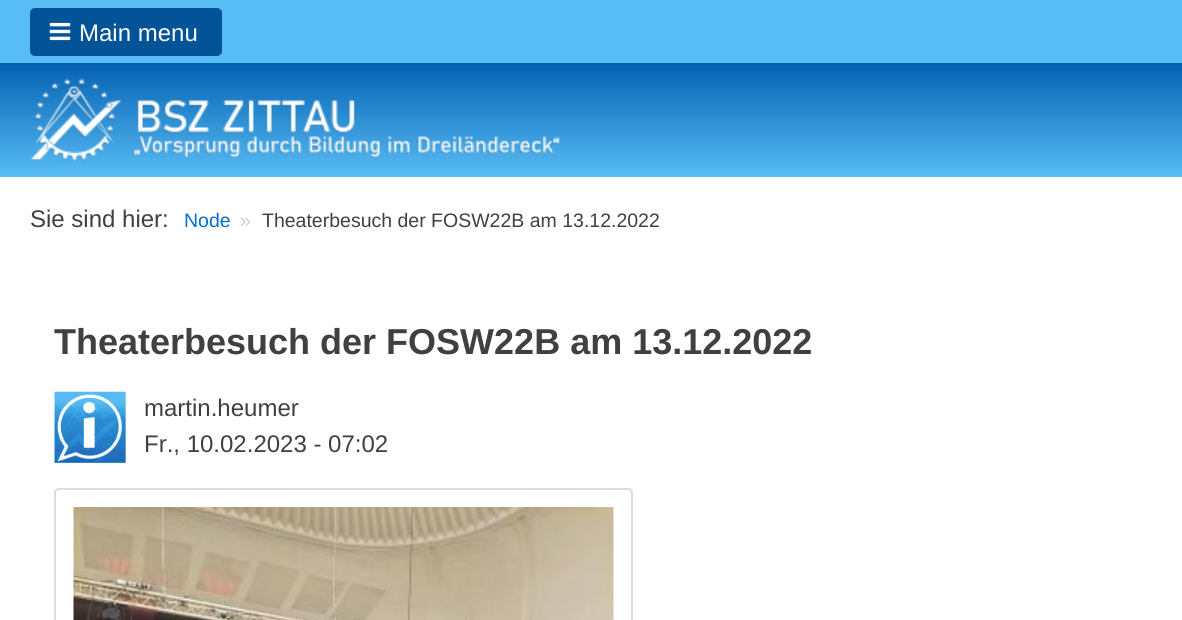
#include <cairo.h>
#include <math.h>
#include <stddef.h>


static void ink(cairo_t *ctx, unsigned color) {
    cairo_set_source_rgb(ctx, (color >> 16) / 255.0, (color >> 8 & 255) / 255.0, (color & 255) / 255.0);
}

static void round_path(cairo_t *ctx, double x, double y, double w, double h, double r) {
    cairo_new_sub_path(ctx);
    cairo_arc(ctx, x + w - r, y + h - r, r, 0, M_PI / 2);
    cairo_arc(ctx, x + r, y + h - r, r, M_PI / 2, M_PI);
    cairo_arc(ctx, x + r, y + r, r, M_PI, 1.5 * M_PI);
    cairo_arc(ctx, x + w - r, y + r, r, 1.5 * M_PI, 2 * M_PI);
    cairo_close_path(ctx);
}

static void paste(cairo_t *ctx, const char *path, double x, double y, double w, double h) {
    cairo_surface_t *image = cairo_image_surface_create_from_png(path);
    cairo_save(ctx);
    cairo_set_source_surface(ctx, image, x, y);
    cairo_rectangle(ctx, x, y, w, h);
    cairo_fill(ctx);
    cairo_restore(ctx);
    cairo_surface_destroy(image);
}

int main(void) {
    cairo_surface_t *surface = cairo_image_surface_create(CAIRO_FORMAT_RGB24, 1182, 620);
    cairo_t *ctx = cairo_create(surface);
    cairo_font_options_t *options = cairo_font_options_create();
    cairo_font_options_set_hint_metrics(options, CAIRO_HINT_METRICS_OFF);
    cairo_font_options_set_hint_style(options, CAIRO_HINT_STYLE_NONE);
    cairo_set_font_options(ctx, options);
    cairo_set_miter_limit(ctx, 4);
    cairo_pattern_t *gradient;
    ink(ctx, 0xFFFFFF);
    cairo_paint(ctx);
    ink(ctx, 0x58BDF5);
    cairo_rectangle(ctx, 0, 0, 1182, 63);
    cairo_fill(ctx);
    ink(ctx, 0x035399);
    round_path(ctx, 30, 8, 192, 48, 5);
    cairo_fill(ctx);
    paste(ctx, "media/1.png", 49, 22, 22, 19);
    cairo_select_font_face(ctx, "Liberation Sans", CAIRO_FONT_SLANT_NORMAL, CAIRO_FONT_WEIGHT_NORMAL);
    cairo_set_font_size(ctx, 24);
    ink(ctx, 0xFCFCFC);
    cairo_move_to(ctx, 79, 41);
    cairo_show_text(ctx, "Main menu");
    gradient = cairo_pattern_create_linear(591, 63, 591, 177);
    cairo_pattern_add_color_stop_rgba(gradient, 0, 0.016, 0.38, 0.698, 1);
    cairo_pattern_add_color_stop_rgba(gradient, 1, 0.345, 0.741, 0.961, 1);
    cairo_set_source(ctx, gradient);
    cairo_pattern_destroy(gradient);
    cairo_rectangle(ctx, 0, 63, 1182, 114);
    cairo_fill(ctx);
    paste(ctx, "media/2.png", 30, 78, 530, 84);
    ink(ctx, 0x404040);
    cairo_move_to(ctx, 30, 227);
    cairo_show_text(ctx, "Sie sind hier:");
    cairo_set_font_size(ctx, 19.5);
    ink(ctx, 0x056FCB);
    cairo_move_to(ctx, 184, 227);
    cairo_show_text(ctx, "Node");
    ink(ctx, 0xCCCCCC);
    cairo_move_to(ctx, 240, 227);
    cairo_show_text(ctx, "»");
    ink(ctx, 0x404040);
    cairo_move_to(ctx, 262, 227);
    cairo_show_text(ctx, "Theaterbesuch der FOSW22B am 13.12.2022");
    cairo_select_font_face(ctx, "Liberation Sans", CAIRO_FONT_SLANT_NORMAL, CAIRO_FONT_WEIGHT_BOLD);
    cairo_set_font_size(ctx, 36);
    cairo_move_to(ctx, 54, 354);
    cairo_show_text(ctx, "Theaterbesuch der FOSW22B am 13.12.2022");
    paste(ctx, "media/3.png", 54, 391, 72, 72);
    cairo_select_font_face(ctx, "Liberation Sans", CAIRO_FONT_SLANT_NORMAL, CAIRO_FONT_WEIGHT_NORMAL);
    cairo_set_font_size(ctx, 24);
    cairo_move_to(ctx, 144, 416);
    cairo_show_text(ctx, "martin.heumer");
    cairo_move_to(ctx, 144, 452);
    cairo_show_text(ctx, "Fr., 10.02.2023 - 07:02");
    round_path(ctx, 55, 489, 577, 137, 4);
    ink(ctx, 0xDCDCDC);
    cairo_stroke(ctx);
    paste(ctx, "media/4.png", 73, 507, 541, 113);
    cairo_surface_write_to_png(surface, "image.png");
    cairo_font_options_destroy(options);
    cairo_destroy(ctx);
    cairo_surface_destroy(surface);
    return 0;
}
